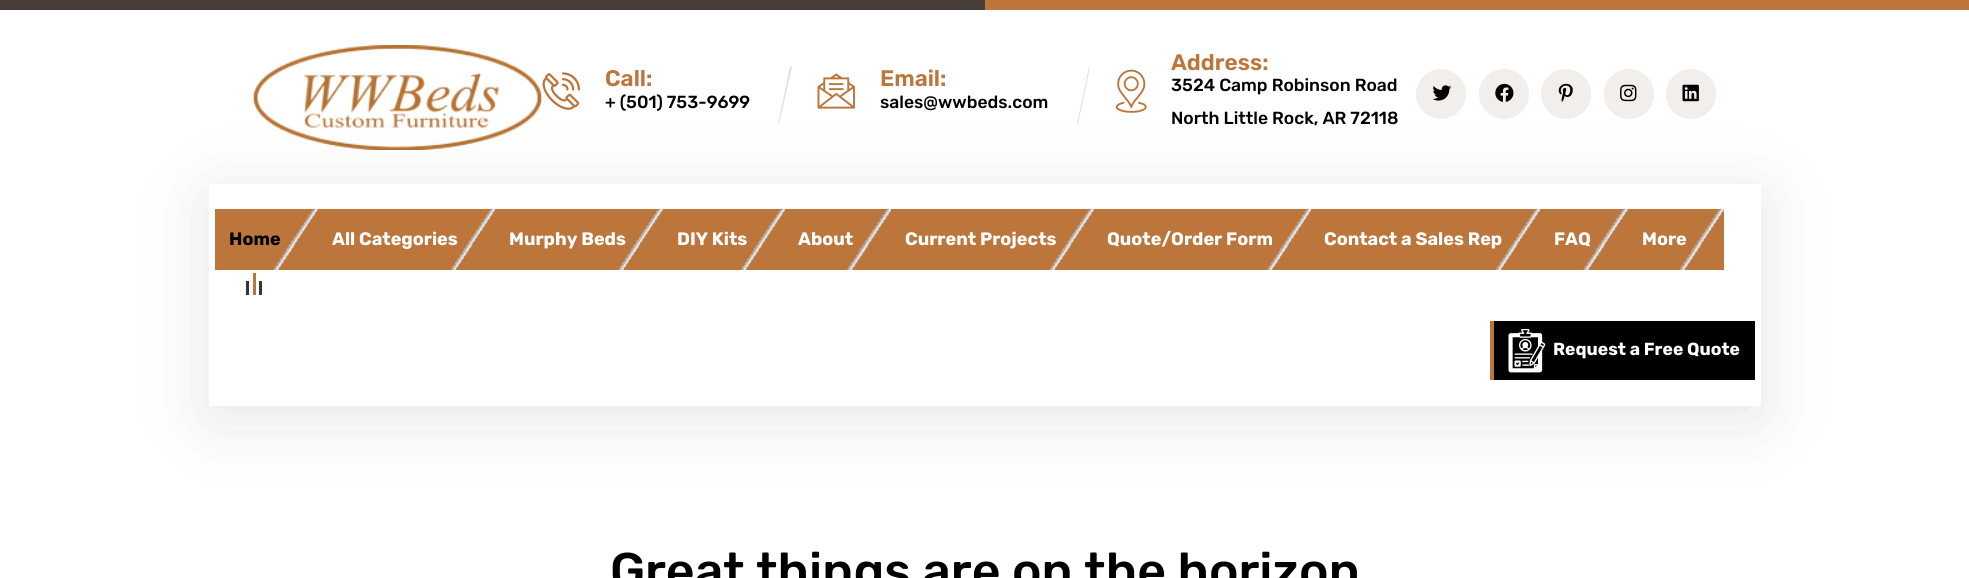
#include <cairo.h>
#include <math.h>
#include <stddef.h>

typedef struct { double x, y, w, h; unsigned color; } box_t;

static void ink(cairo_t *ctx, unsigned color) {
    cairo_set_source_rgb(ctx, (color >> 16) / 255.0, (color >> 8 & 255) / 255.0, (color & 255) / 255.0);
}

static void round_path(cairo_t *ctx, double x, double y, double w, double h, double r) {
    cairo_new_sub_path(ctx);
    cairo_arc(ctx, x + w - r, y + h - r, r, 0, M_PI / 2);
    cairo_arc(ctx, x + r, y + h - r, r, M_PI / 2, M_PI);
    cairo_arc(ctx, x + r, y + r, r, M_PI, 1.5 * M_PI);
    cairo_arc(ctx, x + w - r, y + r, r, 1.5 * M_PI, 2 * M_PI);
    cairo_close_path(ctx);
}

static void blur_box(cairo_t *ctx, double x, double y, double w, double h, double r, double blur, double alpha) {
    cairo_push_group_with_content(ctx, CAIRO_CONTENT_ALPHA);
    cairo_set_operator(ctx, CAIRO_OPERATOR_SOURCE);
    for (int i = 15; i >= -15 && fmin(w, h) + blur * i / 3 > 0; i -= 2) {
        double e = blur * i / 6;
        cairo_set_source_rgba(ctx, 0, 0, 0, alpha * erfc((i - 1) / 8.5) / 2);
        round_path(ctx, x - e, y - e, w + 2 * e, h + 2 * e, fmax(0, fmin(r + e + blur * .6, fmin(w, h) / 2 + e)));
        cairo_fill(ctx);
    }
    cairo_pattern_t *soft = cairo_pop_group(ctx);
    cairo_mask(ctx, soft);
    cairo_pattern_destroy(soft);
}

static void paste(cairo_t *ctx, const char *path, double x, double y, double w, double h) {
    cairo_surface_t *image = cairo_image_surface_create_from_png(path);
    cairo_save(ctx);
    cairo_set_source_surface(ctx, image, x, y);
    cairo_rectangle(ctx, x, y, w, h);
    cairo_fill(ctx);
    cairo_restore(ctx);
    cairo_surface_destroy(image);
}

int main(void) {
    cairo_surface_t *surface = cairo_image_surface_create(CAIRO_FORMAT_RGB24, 1969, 578);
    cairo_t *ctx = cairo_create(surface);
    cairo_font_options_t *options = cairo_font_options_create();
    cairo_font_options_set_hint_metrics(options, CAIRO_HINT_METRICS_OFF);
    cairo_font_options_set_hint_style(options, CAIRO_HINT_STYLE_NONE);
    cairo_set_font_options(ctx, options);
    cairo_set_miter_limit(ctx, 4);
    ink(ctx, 0xFFFFFF);
    cairo_paint(ctx);
    ink(ctx, 0x483E39);
    cairo_rectangle(ctx, 0, 0, 985, 10);
    cairo_fill(ctx);
    ink(ctx, 0xBC763B);
    cairo_rectangle(ctx, 985, 0, 984, 10);
    cairo_fill(ctx);
    paste(ctx, "media/1.png", 253, 45, 289, 105);
    paste(ctx, "media/2.png", 542, 72, 38, 38);
    cairo_select_font_face(ctx, "Rubik SemiBold", CAIRO_FONT_SLANT_NORMAL, CAIRO_FONT_WEIGHT_NORMAL);
    cairo_set_font_size(ctx, 22.5);
    cairo_move_to(ctx, 605, 86);
    cairo_show_text(ctx, "Call:");
    cairo_select_font_face(ctx, "Rubik Medium", CAIRO_FONT_SLANT_NORMAL, CAIRO_FONT_WEIGHT_NORMAL);
    cairo_set_font_size(ctx, 17.5);
    ink(ctx, 0x000000);
    cairo_move_to(ctx, 605, 108);
    cairo_show_text(ctx, "+ (501) 753-9699");
    ink(ctx, 0xE2DDDA);
    cairo_new_path(ctx);
    cairo_move_to(ctx, 790, 67);
    cairo_line_to(ctx, 792, 67);
    cairo_line_to(ctx, 779, 124);
    cairo_line_to(ctx, 778, 124);
    cairo_close_path(ctx);
    cairo_fill(ctx);
    paste(ctx, "media/3.png", 817, 73, 38, 36);
    cairo_select_font_face(ctx, "Rubik SemiBold", CAIRO_FONT_SLANT_NORMAL, CAIRO_FONT_WEIGHT_NORMAL);
    cairo_set_font_size(ctx, 22.5);
    ink(ctx, 0xBC763B);
    cairo_move_to(ctx, 880, 86);
    cairo_show_text(ctx, "Email:");
    cairo_select_font_face(ctx, "Rubik Medium", CAIRO_FONT_SLANT_NORMAL, CAIRO_FONT_WEIGHT_NORMAL);
    cairo_set_font_size(ctx, 17.5);
    ink(ctx, 0x000000);
    cairo_move_to(ctx, 880, 108);
    cairo_show_text(ctx, "sales@wwbeds.com");
    ink(ctx, 0xE2DDDA);
    cairo_new_path(ctx);
    cairo_move_to(ctx, 1089, 67);
    cairo_line_to(ctx, 1090, 67);
    cairo_line_to(ctx, 1078, 124);
    cairo_line_to(ctx, 1077, 124);
    cairo_close_path(ctx);
    cairo_fill(ctx);
    paste(ctx, "media/4.png", 1115, 69, 32, 44);
    cairo_select_font_face(ctx, "Rubik SemiBold", CAIRO_FONT_SLANT_NORMAL, CAIRO_FONT_WEIGHT_NORMAL);
    cairo_set_font_size(ctx, 22.5);
    ink(ctx, 0xBC763B);
    cairo_move_to(ctx, 1171, 70);
    cairo_show_text(ctx, "Address:");
    cairo_select_font_face(ctx, "Rubik Medium", CAIRO_FONT_SLANT_NORMAL, CAIRO_FONT_WEIGHT_NORMAL);
    cairo_set_font_size(ctx, 17.5);
    ink(ctx, 0x000000);
    cairo_move_to(ctx, 1171, 91);
    cairo_show_text(ctx, "3524 Camp Robinson Road");
    cairo_move_to(ctx, 1171, 124);
    cairo_show_text(ctx, "North Little Rock, AR 72118");
    cairo_save(ctx);
    cairo_set_fill_rule(ctx, CAIRO_FILL_RULE_EVEN_ODD);
    cairo_new_path(ctx);
    cairo_move_to(ctx, 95, 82);
    cairo_line_to(ctx, 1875, 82);
    cairo_line_to(ctx, 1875, 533);
    cairo_line_to(ctx, 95, 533);
    cairo_close_path(ctx);
    cairo_move_to(ctx, 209, 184);
    cairo_line_to(ctx, 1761, 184);
    cairo_line_to(ctx, 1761, 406);
    cairo_line_to(ctx, 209, 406);
    cairo_close_path(ctx);
    cairo_clip(ctx);
    ink(ctx, 0x000000);
    blur_box(ctx, 209, 196, 1552, 223, 0, 37.5, 0.1);
    cairo_restore(ctx);
    ink(ctx, 0xF2EEEB);
    cairo_arc(ctx, 1441, 94, 25, 0, 2 * M_PI);
    cairo_fill(ctx);
    paste(ctx, "media/5.png", 1432, 85, 20, 16);
    cairo_arc(ctx, 1504, 94, 25, 0, 2 * M_PI);
    cairo_fill(ctx);
    paste(ctx, "media/6.png", 1495, 83, 19, 19);
    cairo_arc(ctx, 1566, 94, 25, 0, 2 * M_PI);
    cairo_fill(ctx);
    paste(ctx, "media/7.png", 1558, 83, 15, 19);
    cairo_arc(ctx, 1629, 94, 25, 0, 2 * M_PI);
    cairo_fill(ctx);
    paste(ctx, "media/8.png", 1620, 84, 17, 18);
    cairo_arc(ctx, 1691, 94, 25, 0, 2 * M_PI);
    cairo_fill(ctx);
    paste(ctx, "media/9.png", 1682, 84, 17, 18);
    ink(ctx, 0xBC763B);
    cairo_rectangle(ctx, 215, 209, 676, 61);
    cairo_fill(ctx);
    paste(ctx, "media/10.png", 273, 208, 45, 62);
    cairo_select_font_face(ctx, "Rubik", CAIRO_FONT_SLANT_NORMAL, CAIRO_FONT_WEIGHT_BOLD);
    cairo_set_font_size(ctx, 18);
    ink(ctx, 0x000000);
    cairo_move_to(ctx, 229, 245);
    cairo_show_text(ctx, "Home");
    {
        static const box_t items[] = {
            {259, 281, 3, 14, 0x3B3430},
            {246, 281, 3, 14, 0x3B3430},
            {253, 273, 3, 22, 0xBC763B},
        };
        for (size_t i = 0; i < sizeof items / sizeof *items; i++) {
            ink(ctx, items[i].color);
            cairo_rectangle(ctx, items[i].x, items[i].y, items[i].w, items[i].h);
            cairo_fill(ctx);
        }
    }
    paste(ctx, "media/11.png", 451, 208, 44, 62);
    ink(ctx, 0xFFFFFF);
    cairo_move_to(ctx, 332, 245);
    cairo_show_text(ctx, "All Categories");
    paste(ctx, "media/10.png", 618, 208, 45, 62);
    cairo_move_to(ctx, 509, 245);
    cairo_show_text(ctx, "Murphy Beds");
    paste(ctx, "media/12.png", 741, 208, 44, 62);
    cairo_move_to(ctx, 677, 245);
    cairo_show_text(ctx, "DIY Kits");
    paste(ctx, "media/13.png", 847, 208, 45, 62);
    cairo_move_to(ctx, 798, 245);
    cairo_show_text(ctx, "About");
    ink(ctx, 0xBC763B);
    cairo_rectangle(ctx, 891, 209, 420, 61);
    cairo_fill(ctx);
    paste(ctx, "media/14.png", 1049, 208, 45, 62);
    ink(ctx, 0xFFFFFF);
    cairo_move_to(ctx, 905, 245);
    cairo_show_text(ctx, "Current Projects");
    paste(ctx, "media/13.png", 1267, 208, 45, 62);
    cairo_move_to(ctx, 1107, 245);
    cairo_show_text(ctx, "Quote/Order Form");
    ink(ctx, 0xBC763B);
    cairo_rectangle(ctx, 1311, 209, 413, 61);
    cairo_fill(ctx);
    paste(ctx, "media/11.png", 1496, 208, 44, 62);
    ink(ctx, 0xFFFFFF);
    cairo_move_to(ctx, 1324, 245);
    cairo_show_text(ctx, "Contact a Sales Rep");
    paste(ctx, "media/10.png", 1583, 208, 45, 62);
    cairo_move_to(ctx, 1554, 245);
    cairo_show_text(ctx, "FAQ");
    paste(ctx, "media/14.png", 1679, 208, 45, 62);
    cairo_move_to(ctx, 1642, 245);
    cairo_show_text(ctx, "More");
    ink(ctx, 0x000000);
    cairo_rectangle(ctx, 1494, 321, 261, 59);
    cairo_fill(ctx);
    ink(ctx, 0xBC763B);
    cairo_rectangle(ctx, 1490, 321, 4, 59);
    cairo_fill(ctx);
    paste(ctx, "media/15.png", 1508, 329, 38, 44);
    cairo_set_font_size(ctx, 17.5);
    ink(ctx, 0xFFFFFF);
    cairo_move_to(ctx, 1553, 355);
    cairo_show_text(ctx, "Request a Free Quote");
    cairo_select_font_face(ctx, "Rubik Medium", CAIRO_FONT_SLANT_NORMAL, CAIRO_FONT_WEIGHT_NORMAL);
    cairo_set_font_size(ctx, 50);
    ink(ctx, 0x000000);
    cairo_move_to(ctx, 610, 588);
    cairo_show_text(ctx, "Great things are on the horizon");
    cairo_surface_write_to_png(surface, "image.png");
    cairo_font_options_destroy(options);
    cairo_destroy(ctx);
    cairo_surface_destroy(surface);
    return 0;
}
